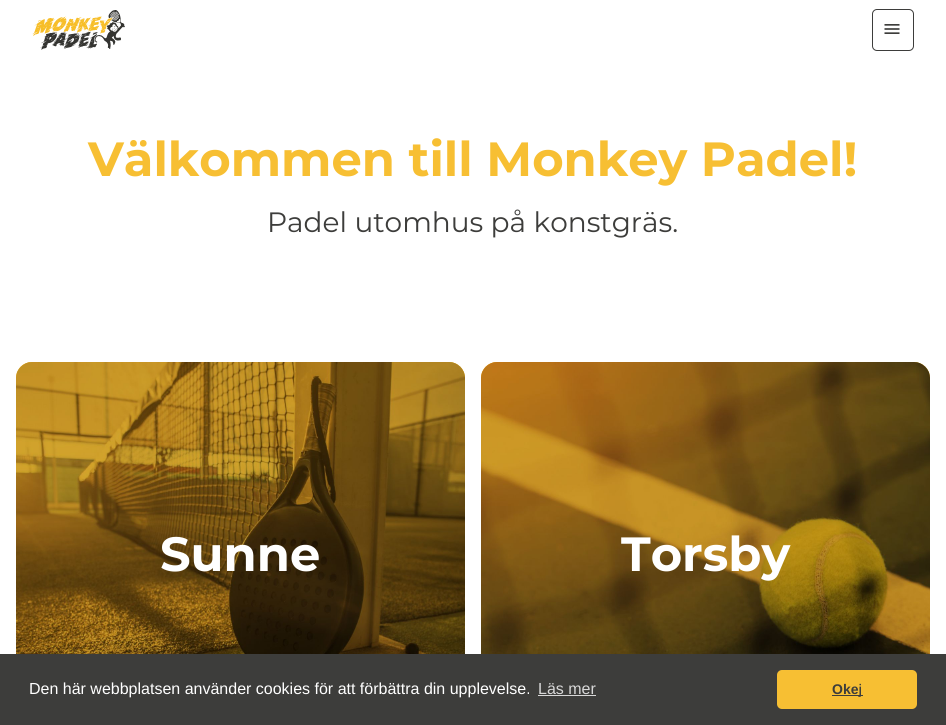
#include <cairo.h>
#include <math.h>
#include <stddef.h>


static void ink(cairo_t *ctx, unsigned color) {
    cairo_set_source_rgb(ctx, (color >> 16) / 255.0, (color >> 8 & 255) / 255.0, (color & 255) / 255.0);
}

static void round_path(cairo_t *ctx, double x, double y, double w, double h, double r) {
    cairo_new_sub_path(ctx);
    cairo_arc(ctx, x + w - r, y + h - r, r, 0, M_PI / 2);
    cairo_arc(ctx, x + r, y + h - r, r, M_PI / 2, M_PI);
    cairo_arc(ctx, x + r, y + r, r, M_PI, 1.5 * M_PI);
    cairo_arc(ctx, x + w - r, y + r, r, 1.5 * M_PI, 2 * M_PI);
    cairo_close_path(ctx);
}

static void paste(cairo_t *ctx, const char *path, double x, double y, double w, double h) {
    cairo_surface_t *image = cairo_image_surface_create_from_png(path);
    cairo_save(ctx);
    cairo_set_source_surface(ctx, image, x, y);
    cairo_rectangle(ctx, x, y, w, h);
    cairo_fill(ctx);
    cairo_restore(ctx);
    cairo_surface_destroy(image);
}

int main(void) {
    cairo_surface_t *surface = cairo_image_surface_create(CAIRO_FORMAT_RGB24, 946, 725);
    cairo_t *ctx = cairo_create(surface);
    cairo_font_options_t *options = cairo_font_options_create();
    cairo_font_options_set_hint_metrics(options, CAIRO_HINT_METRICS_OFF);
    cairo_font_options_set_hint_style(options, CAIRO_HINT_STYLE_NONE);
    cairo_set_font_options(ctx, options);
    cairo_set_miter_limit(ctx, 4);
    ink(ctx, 0xFFFFFF);
    cairo_paint(ctx);
    paste(ctx, "media/1.png", 32, 10, 93, 40);
    round_path(ctx, 872.5, 9.5, 41, 41, 4.5);
    ink(ctx, 0x3D3D3B);
    cairo_set_line_width(ctx, 1);
    cairo_stroke(ctx);
    paste(ctx, "media/2.png", 884, 24, 16, 10);
    cairo_select_font_face(ctx, "Montserrat", CAIRO_FONT_SLANT_NORMAL, CAIRO_FONT_WEIGHT_BOLD);
    cairo_set_font_size(ctx, 48);
    ink(ctx, 0xF7BF33);
    cairo_move_to(ctx, 88, 176);
    cairo_show_text(ctx, "Välkommen till Monkey Padel!");
    cairo_select_font_face(ctx, "Montserrat", CAIRO_FONT_SLANT_NORMAL, CAIRO_FONT_WEIGHT_NORMAL);
    cairo_set_font_size(ctx, 28);
    ink(ctx, 0x3D3D3B);
    cairo_move_to(ctx, 267, 232);
    cairo_show_text(ctx, "Padel utomhus på konstgräs.");
    ink(ctx, 0xF7BF33);
    round_path(ctx, 16, 362, 449, 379, 16);
    cairo_fill(ctx);
    paste(ctx, "media/3.png", 16, 362, 449, 292);
    cairo_select_font_face(ctx, "Montserrat", CAIRO_FONT_SLANT_NORMAL, CAIRO_FONT_WEIGHT_BOLD);
    cairo_set_font_size(ctx, 48);
    ink(ctx, 0xFFFFFF);
    cairo_move_to(ctx, 160, 571);
    cairo_show_text(ctx, "Sunne");
    ink(ctx, 0xF7BF33);
    round_path(ctx, 481, 362, 449, 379, 16);
    cairo_fill(ctx);
    paste(ctx, "media/4.png", 481, 362, 449, 292);
    ink(ctx, 0xFFFFFF);
    cairo_move_to(ctx, 621, 571);
    cairo_show_text(ctx, "Torsby");
    ink(ctx, 0x3D3D3B);
    cairo_rectangle(ctx, 0, 654, 946, 71);
    cairo_fill(ctx);
    cairo_select_font_face(ctx, "Liberation Sans", CAIRO_FONT_SLANT_NORMAL, CAIRO_FONT_WEIGHT_NORMAL);
    cairo_set_font_size(ctx, 16);
    ink(ctx, 0xFFFFFF);
    cairo_move_to(ctx, 29, 694);
    cairo_show_text(ctx, "Den här webbplatsen använder cookies för att förbättra din upplevelse.");
    ink(ctx, 0xD8D8D8);
    cairo_move_to(ctx, 538, 694);
    cairo_show_text(ctx, "Läs mer");
    cairo_rectangle(ctx, 538, 695, 58, 1);
    cairo_fill(ctx);
    ink(ctx, 0xF7BF33);
    round_path(ctx, 777, 670, 140, 39, 5);
    cairo_fill(ctx);
    ink(ctx, 0x3D3D3B);
    cairo_rectangle(ctx, 832, 695, 31, 1);
    cairo_fill(ctx);
    cairo_select_font_face(ctx, "Liberation Sans", CAIRO_FONT_SLANT_NORMAL, CAIRO_FONT_WEIGHT_BOLD);
    cairo_set_font_size(ctx, 14);
    cairo_move_to(ctx, 832, 694);
    cairo_show_text(ctx, "Okej");
    cairo_surface_write_to_png(surface, "image.png");
    cairo_font_options_destroy(options);
    cairo_destroy(ctx);
    cairo_surface_destroy(surface);
    return 0;
}
